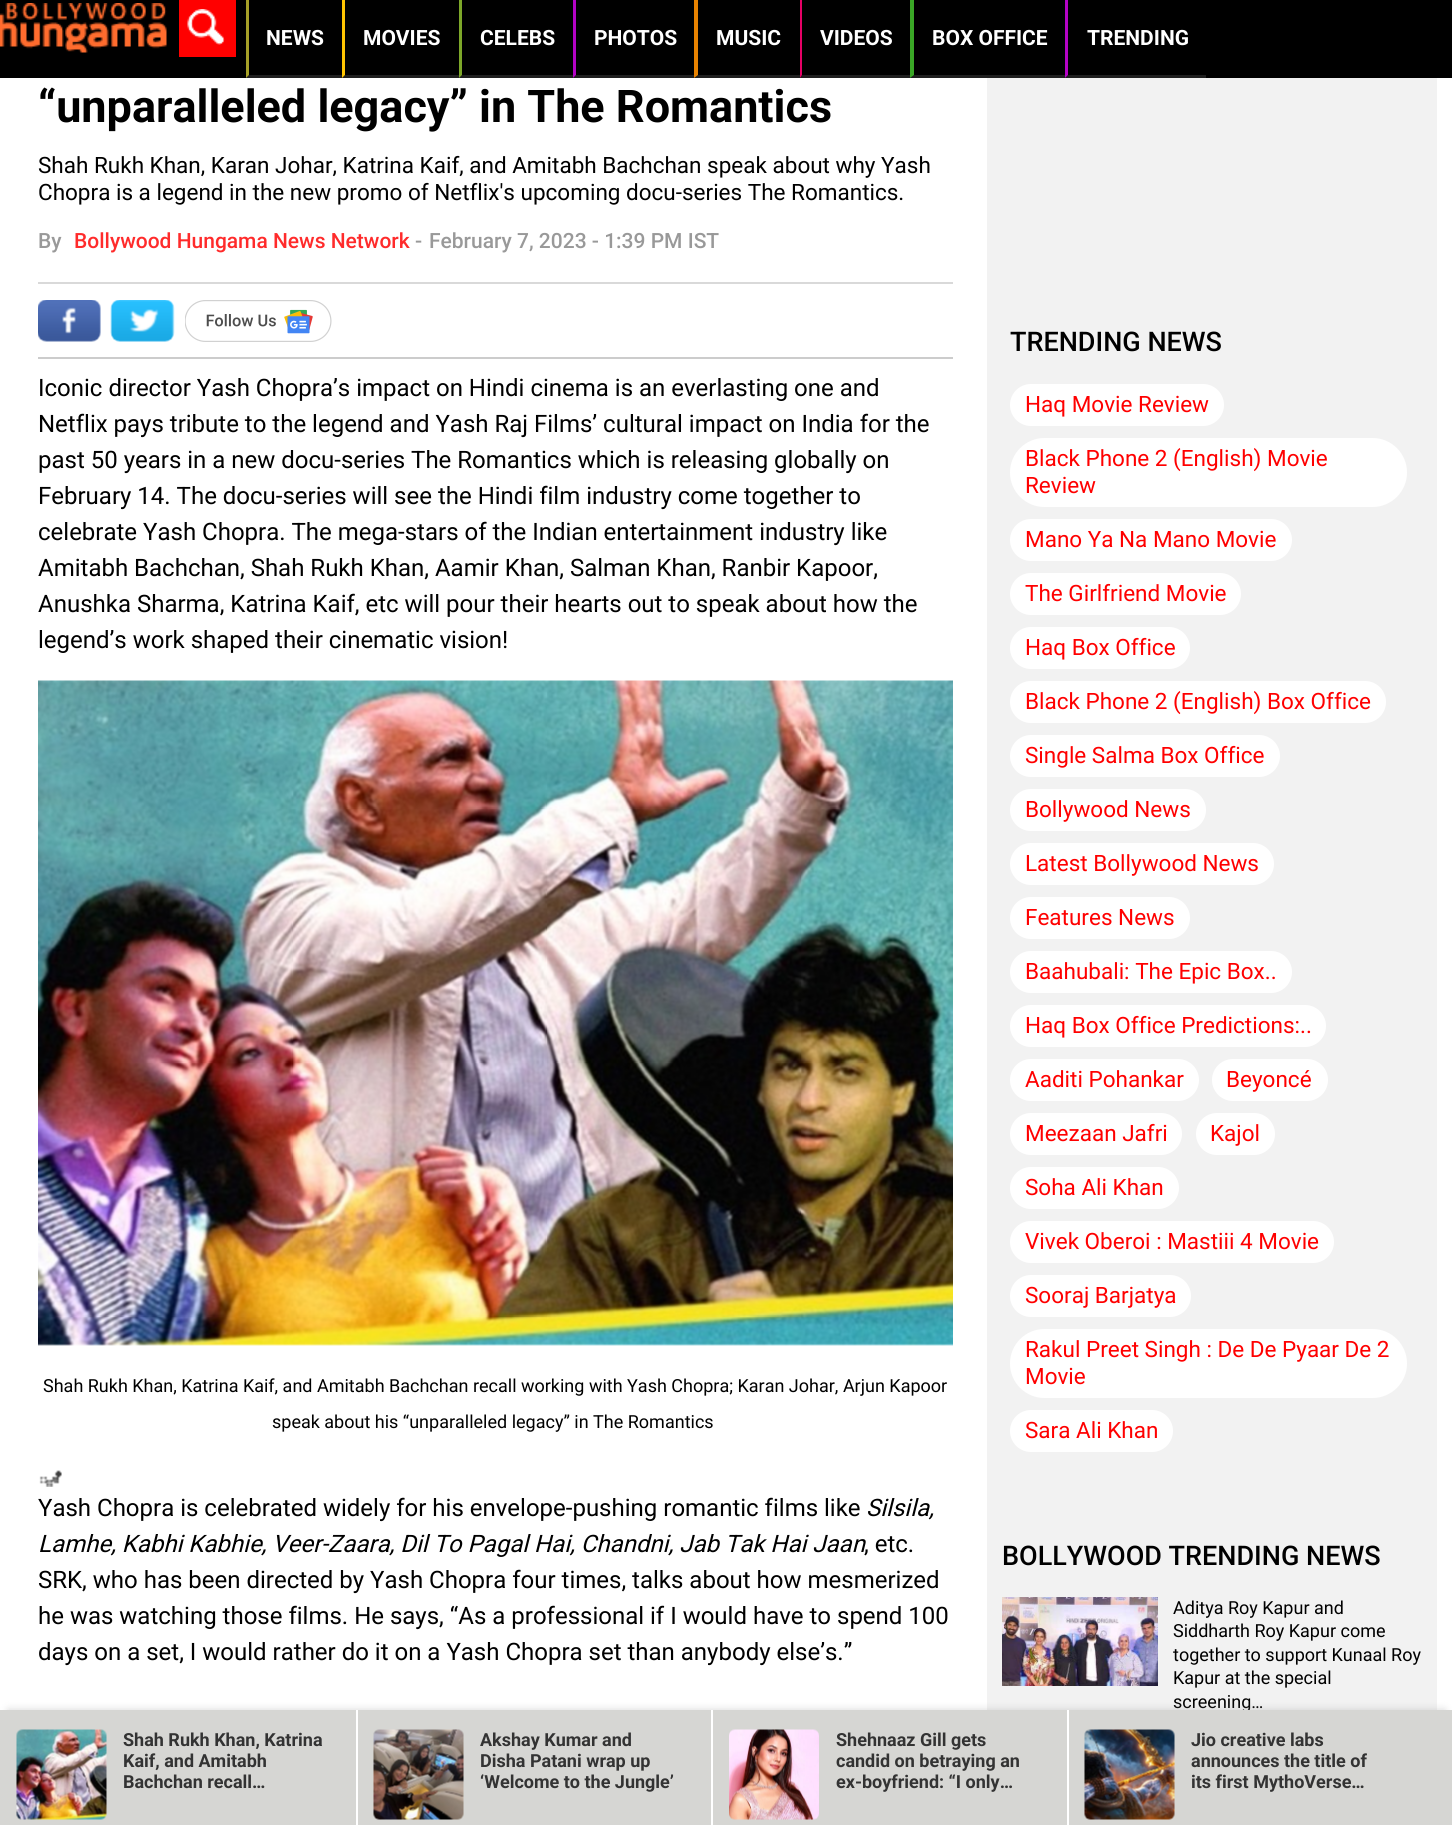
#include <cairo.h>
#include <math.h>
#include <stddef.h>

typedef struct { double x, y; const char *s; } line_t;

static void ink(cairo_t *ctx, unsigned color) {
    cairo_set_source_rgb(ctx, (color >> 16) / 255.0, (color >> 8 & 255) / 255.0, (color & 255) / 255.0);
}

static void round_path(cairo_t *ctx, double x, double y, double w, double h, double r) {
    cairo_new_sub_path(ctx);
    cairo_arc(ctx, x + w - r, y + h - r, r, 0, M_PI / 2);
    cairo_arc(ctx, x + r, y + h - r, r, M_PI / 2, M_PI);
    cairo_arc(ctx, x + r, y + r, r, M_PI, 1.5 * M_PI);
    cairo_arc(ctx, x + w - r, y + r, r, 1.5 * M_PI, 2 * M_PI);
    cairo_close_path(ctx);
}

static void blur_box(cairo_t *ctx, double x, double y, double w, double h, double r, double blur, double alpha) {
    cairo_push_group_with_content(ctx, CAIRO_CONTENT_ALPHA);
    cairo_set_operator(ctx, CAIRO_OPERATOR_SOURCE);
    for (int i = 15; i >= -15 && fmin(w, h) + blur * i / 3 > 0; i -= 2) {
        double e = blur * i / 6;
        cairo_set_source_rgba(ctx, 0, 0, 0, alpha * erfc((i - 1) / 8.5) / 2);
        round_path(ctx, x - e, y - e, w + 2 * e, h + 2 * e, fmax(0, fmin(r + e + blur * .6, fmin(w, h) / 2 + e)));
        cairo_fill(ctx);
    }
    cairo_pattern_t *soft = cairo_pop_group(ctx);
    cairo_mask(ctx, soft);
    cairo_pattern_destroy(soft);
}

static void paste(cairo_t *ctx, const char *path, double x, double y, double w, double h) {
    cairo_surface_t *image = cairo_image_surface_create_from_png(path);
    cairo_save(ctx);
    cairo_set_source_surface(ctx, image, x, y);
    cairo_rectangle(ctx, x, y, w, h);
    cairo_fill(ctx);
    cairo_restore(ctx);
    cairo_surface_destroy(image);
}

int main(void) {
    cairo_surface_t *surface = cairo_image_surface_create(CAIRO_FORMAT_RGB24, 1452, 1825);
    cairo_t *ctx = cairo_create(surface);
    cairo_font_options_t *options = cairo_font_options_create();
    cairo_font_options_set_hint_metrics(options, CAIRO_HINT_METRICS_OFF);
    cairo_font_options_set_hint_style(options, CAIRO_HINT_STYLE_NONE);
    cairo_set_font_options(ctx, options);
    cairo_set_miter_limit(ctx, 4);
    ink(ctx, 0xFFFFFF);
    cairo_paint(ctx);
    ink(ctx, 0x000000);
    cairo_rectangle(ctx, 0, 0, 1452, 78);
    cairo_fill(ctx);
    paste(ctx, "media/1.png", 0, 3, 167, 50);
    ink(ctx, 0xFF0000);
    cairo_rectangle(ctx, 179, 0, 57, 57);
    cairo_fill(ctx);
    paste(ctx, "media/2.png", 187, 9, 38, 36);
    ink(ctx, 0x1F1F1F);
    cairo_new_path(ctx);
    cairo_move_to(ctx, 342, 78);
    cairo_line_to(ctx, 246, 78);
    cairo_line_to(ctx, 249, 75);
    cairo_line_to(ctx, 342, 75);
    cairo_close_path(ctx);
    cairo_fill(ctx);
    ink(ctx, 0xA6A028);
    cairo_new_path(ctx);
    cairo_move_to(ctx, 246, 78);
    cairo_line_to(ctx, 246, 0);
    cairo_line_to(ctx, 249, 0);
    cairo_line_to(ctx, 249, 75);
    cairo_close_path(ctx);
    cairo_fill(ctx);
    cairo_select_font_face(ctx, "Roboto", CAIRO_FONT_SLANT_NORMAL, CAIRO_FONT_WEIGHT_BOLD);
    cairo_set_font_size(ctx, 21);
    ink(ctx, 0xFFFFFF);
    cairo_move_to(ctx, 266, 45);
    cairo_show_text(ctx, "NEWS");
    ink(ctx, 0x1F1F1F);
    cairo_new_path(ctx);
    cairo_move_to(ctx, 459, 78);
    cairo_line_to(ctx, 342, 78);
    cairo_line_to(ctx, 345, 75);
    cairo_line_to(ctx, 459, 75);
    cairo_close_path(ctx);
    cairo_fill(ctx);
    ink(ctx, 0xFFC501);
    cairo_new_path(ctx);
    cairo_move_to(ctx, 342, 78);
    cairo_line_to(ctx, 342, 0);
    cairo_line_to(ctx, 345, 0);
    cairo_line_to(ctx, 345, 75);
    cairo_close_path(ctx);
    cairo_fill(ctx);
    ink(ctx, 0xFFFFFF);
    cairo_move_to(ctx, 363, 45);
    cairo_show_text(ctx, "MOVIES");
    ink(ctx, 0x1F1F1F);
    cairo_new_path(ctx);
    cairo_move_to(ctx, 573, 78);
    cairo_line_to(ctx, 459, 78);
    cairo_line_to(ctx, 462, 75);
    cairo_line_to(ctx, 573, 75);
    cairo_close_path(ctx);
    cairo_fill(ctx);
    ink(ctx, 0x7DA729);
    cairo_new_path(ctx);
    cairo_move_to(ctx, 459, 78);
    cairo_line_to(ctx, 459, 0);
    cairo_line_to(ctx, 462, 0);
    cairo_line_to(ctx, 462, 75);
    cairo_close_path(ctx);
    cairo_fill(ctx);
    ink(ctx, 0xFFFFFF);
    cairo_move_to(ctx, 480, 45);
    cairo_show_text(ctx, "CELEBS");
    ink(ctx, 0x1F1F1F);
    cairo_new_path(ctx);
    cairo_move_to(ctx, 694, 78);
    cairo_line_to(ctx, 573, 78);
    cairo_line_to(ctx, 576, 75);
    cairo_line_to(ctx, 694, 75);
    cairo_close_path(ctx);
    cairo_fill(ctx);
    ink(ctx, 0xB403C5);
    cairo_new_path(ctx);
    cairo_move_to(ctx, 573, 78);
    cairo_line_to(ctx, 573, 0);
    cairo_line_to(ctx, 576, 0);
    cairo_line_to(ctx, 576, 75);
    cairo_close_path(ctx);
    cairo_fill(ctx);
    ink(ctx, 0xFFFFFF);
    cairo_move_to(ctx, 594, 45);
    cairo_show_text(ctx, "PHOTOS");
    ink(ctx, 0x1F1F1F);
    cairo_new_path(ctx);
    cairo_move_to(ctx, 800, 78);
    cairo_line_to(ctx, 694, 78);
    cairo_line_to(ctx, 698, 75);
    cairo_line_to(ctx, 800, 75);
    cairo_close_path(ctx);
    cairo_fill(ctx);
    ink(ctx, 0xE78200);
    cairo_new_path(ctx);
    cairo_move_to(ctx, 694, 78);
    cairo_line_to(ctx, 694, 0);
    cairo_line_to(ctx, 698, 0);
    cairo_line_to(ctx, 698, 75);
    cairo_close_path(ctx);
    cairo_fill(ctx);
    ink(ctx, 0xFFFFFF);
    cairo_move_to(ctx, 716, 45);
    cairo_show_text(ctx, "MUSIC");
    ink(ctx, 0x1F1F1F);
    cairo_new_path(ctx);
    cairo_move_to(ctx, 910, 78);
    cairo_line_to(ctx, 800, 78);
    cairo_line_to(ctx, 802, 75);
    cairo_line_to(ctx, 910, 75);
    cairo_close_path(ctx);
    cairo_fill(ctx);
    ink(ctx, 0xE60065);
    cairo_new_path(ctx);
    cairo_move_to(ctx, 800, 78);
    cairo_line_to(ctx, 800, 0);
    cairo_line_to(ctx, 802, 0);
    cairo_line_to(ctx, 802, 75);
    cairo_close_path(ctx);
    cairo_fill(ctx);
    ink(ctx, 0xFFFFFF);
    cairo_move_to(ctx, 820, 45);
    cairo_show_text(ctx, "VIDEOS");
    ink(ctx, 0x1F1F1F);
    cairo_new_path(ctx);
    cairo_move_to(ctx, 1065, 78);
    cairo_line_to(ctx, 910, 78);
    cairo_line_to(ctx, 914, 75);
    cairo_line_to(ctx, 1065, 75);
    cairo_close_path(ctx);
    cairo_fill(ctx);
    ink(ctx, 0x3AA726);
    cairo_new_path(ctx);
    cairo_move_to(ctx, 910, 78);
    cairo_line_to(ctx, 910, 0);
    cairo_line_to(ctx, 914, 0);
    cairo_line_to(ctx, 914, 75);
    cairo_close_path(ctx);
    cairo_fill(ctx);
    ink(ctx, 0xFFFFFF);
    cairo_move_to(ctx, 932, 45);
    cairo_show_text(ctx, "BOX OFFICE");
    ink(ctx, 0x1F1F1F);
    cairo_new_path(ctx);
    cairo_move_to(ctx, 1206, 78);
    cairo_line_to(ctx, 1065, 78);
    cairo_line_to(ctx, 1068, 75);
    cairo_line_to(ctx, 1206, 75);
    cairo_close_path(ctx);
    cairo_fill(ctx);
    ink(ctx, 0xB403C5);
    cairo_new_path(ctx);
    cairo_move_to(ctx, 1065, 78);
    cairo_line_to(ctx, 1065, 0);
    cairo_line_to(ctx, 1068, 0);
    cairo_line_to(ctx, 1068, 75);
    cairo_close_path(ctx);
    cairo_fill(ctx);
    ink(ctx, 0xFFFFFF);
    cairo_move_to(ctx, 1087, 45);
    cairo_show_text(ctx, "TRENDING");
    ink(ctx, 0xD9D9D9);
    cairo_rectangle(ctx, 38, 282, 915, 2);
    cairo_fill(ctx);
    cairo_set_font_size(ctx, 45);
    ink(ctx, 0x000000);
    cairo_move_to(ctx, 38, 122);
    cairo_show_text(ctx, "“unparalleled legacy” in The Romantics");
    cairo_select_font_face(ctx, "Roboto", CAIRO_FONT_SLANT_NORMAL, CAIRO_FONT_WEIGHT_NORMAL);
    cairo_set_font_size(ctx, 22.5);
    cairo_move_to(ctx, 38, 173);
    cairo_show_text(ctx, "Shah Rukh Khan, Karan Johar, Katrina Kaif, and Amitabh Bachchan speak about why Yash");
    cairo_move_to(ctx, 38, 200);
    cairo_show_text(ctx, "Chopra is a legend in the new promo of Netflix's upcoming docu-series The Romantics.");
    cairo_select_font_face(ctx, "Roboto Medium", CAIRO_FONT_SLANT_NORMAL, CAIRO_FONT_WEIGHT_NORMAL);
    cairo_set_font_size(ctx, 21);
    ink(ctx, 0x999999);
    cairo_move_to(ctx, 38, 248);
    cairo_show_text(ctx, "By");
    ink(ctx, 0xFF2B2B);
    cairo_move_to(ctx, 74, 248);
    cairo_show_text(ctx, "Bollywood Hungama News Network");
    ink(ctx, 0x999999);
    cairo_move_to(ctx, 415, 248);
    cairo_show_text(ctx, "-");
    cairo_move_to(ctx, 429, 248);
    cairo_show_text(ctx, "February 7, 2023 - 1:39 PM IST");
    ink(ctx, 0xCCCCCC);
    cairo_rectangle(ctx, 38, 357, 915, 2);
    cairo_fill(ctx);
    paste(ctx, "media/3.png", 38, 300, 63, 42);
    paste(ctx, "media/4.png", 110, 300, 65, 42);
    paste(ctx, "media/5.png", 185, 300, 147, 42);
    cairo_select_font_face(ctx, "Roboto", CAIRO_FONT_SLANT_NORMAL, CAIRO_FONT_WEIGHT_NORMAL);
    cairo_set_font_size(ctx, 24);
    ink(ctx, 0x000000);
    {
        static const line_t items[] = {
            {38, 396, "Iconic director Yash Chopra’s impact on Hindi cinema is an everlasting one and"},
            {38, 432, "Netflix pays tribute to the legend and Yash Raj Films’ cultural impact on India for the"},
            {38, 468, "past 50 years in a new docu-series The Romantics which is releasing globally on"},
            {38, 504, "February 14. The docu-series will see the Hindi film industry come together to"},
            {38, 540, "celebrate Yash Chopra. The mega-stars of the Indian entertainment industry like"},
            {38, 576, "Amitabh Bachchan, Shah Rukh Khan, Aamir Khan, Salman Khan, Ranbir Kapoor,"},
            {38, 612, "Anushka Sharma, Katrina Kaif, etc will pour their hearts out to speak about how the"},
            {38, 648, "legend’s work shaped their cinematic vision!"},
        };
        for (size_t i = 0; i < sizeof items / sizeof *items; i++) {
            cairo_move_to(ctx, items[i].x, items[i].y);
            cairo_show_text(ctx, items[i].s);
        }
    }
    paste(ctx, "media/6.png", 38, 680, 915, 666);
    cairo_set_font_size(ctx, 18);
    cairo_move_to(ctx, 43, 1392);
    cairo_show_text(ctx, "Shah Rukh Khan, Katrina Kaif, and Amitabh Bachchan recall working with Yash Chopra; Karan Johar, Arjun Kapoor");
    cairo_move_to(ctx, 272, 1428);
    cairo_show_text(ctx, "speak about his “unparalleled legacy” in The Romantics");
    paste(ctx, "media/7.png", 39, 1470, 23, 17);
    cairo_set_font_size(ctx, 24);
    cairo_move_to(ctx, 38, 1516);
    cairo_show_text(ctx, "Yash Chopra is celebrated widely for his envelope-pushing romantic films like");
    cairo_select_font_face(ctx, "Roboto", CAIRO_FONT_SLANT_ITALIC, CAIRO_FONT_WEIGHT_NORMAL);
    cairo_move_to(ctx, 866, 1516);
    cairo_show_text(ctx, "Silsila,");
    cairo_move_to(ctx, 38, 1552);
    cairo_show_text(ctx, "Lamhe, Kabhi Kabhie, Veer-Zaara, Dil To Pagal Hai, Chandni, Jab Tak Hai Jaan");
    cairo_select_font_face(ctx, "Roboto", CAIRO_FONT_SLANT_NORMAL, CAIRO_FONT_WEIGHT_NORMAL);
    {
        static const line_t items[] = {
            {864, 1552, ", etc."},
            {38, 1588, "SRK, who has been directed by Yash Chopra four times, talks about how mesmerized"},
            {38, 1624, "he was watching those films. He says, “As a professional if I would have to spend 100"},
            {38, 1660, "days on a set, I would rather do it on a Yash Chopra set than anybody else’s.”"},
        };
        for (size_t i = 0; i < sizeof items / sizeof *items; i++) {
            cairo_move_to(ctx, items[i].x, items[i].y);
            cairo_show_text(ctx, items[i].s);
        }
    }
    ink(ctx, 0xF2F2F2);
    cairo_rectangle(ctx, 987, 78, 450, 1632);
    cairo_fill(ctx);
    cairo_select_font_face(ctx, "Roboto Medium", CAIRO_FONT_SLANT_NORMAL, CAIRO_FONT_WEIGHT_NORMAL);
    cairo_set_font_size(ctx, 27);
    ink(ctx, 0x000000);
    cairo_move_to(ctx, 1010, 351);
    cairo_show_text(ctx, "TRENDING NEWS");
    ink(ctx, 0xFFFFFF);
    round_path(ctx, 1010, 384, 214, 42, 21);
    cairo_fill(ctx);
    cairo_select_font_face(ctx, "Roboto", CAIRO_FONT_SLANT_NORMAL, CAIRO_FONT_WEIGHT_NORMAL);
    cairo_set_font_size(ctx, 22.5);
    ink(ctx, 0xFF0000);
    cairo_move_to(ctx, 1025, 412);
    cairo_show_text(ctx, "Haq Movie Review");
    ink(ctx, 0xFFFFFF);
    round_path(ctx, 1010, 438, 397, 69, 34.5);
    cairo_fill(ctx);
    ink(ctx, 0xFF0000);
    cairo_move_to(ctx, 1025, 466);
    cairo_show_text(ctx, "Black Phone 2 (English) Movie");
    cairo_move_to(ctx, 1025, 493);
    cairo_show_text(ctx, "Review");
    ink(ctx, 0xFFFFFF);
    round_path(ctx, 1010, 519, 282, 42, 21);
    cairo_fill(ctx);
    ink(ctx, 0xFF0000);
    cairo_move_to(ctx, 1025, 547);
    cairo_show_text(ctx, "Mano Ya Na Mano Movie");
    ink(ctx, 0xFFFFFF);
    round_path(ctx, 1010, 573, 231, 42, 21);
    cairo_fill(ctx);
    ink(ctx, 0xFF0000);
    cairo_move_to(ctx, 1025, 601);
    cairo_show_text(ctx, "The Girlfriend Movie");
    ink(ctx, 0xFFFFFF);
    round_path(ctx, 1010, 627, 180, 42, 21);
    cairo_fill(ctx);
    ink(ctx, 0xFF0000);
    cairo_move_to(ctx, 1025, 655);
    cairo_show_text(ctx, "Haq Box Office");
    ink(ctx, 0xFFFFFF);
    round_path(ctx, 1010, 681, 376, 42, 21);
    cairo_fill(ctx);
    ink(ctx, 0xFF0000);
    cairo_move_to(ctx, 1025, 709);
    cairo_show_text(ctx, "Black Phone 2 (English) Box Office");
    ink(ctx, 0xFFFFFF);
    round_path(ctx, 1010, 735, 270, 42, 21);
    cairo_fill(ctx);
    ink(ctx, 0xFF0000);
    cairo_move_to(ctx, 1025, 763);
    cairo_show_text(ctx, "Single Salma Box Office");
    ink(ctx, 0xFFFFFF);
    round_path(ctx, 1010, 789, 196, 42, 21);
    cairo_fill(ctx);
    ink(ctx, 0xFF0000);
    cairo_move_to(ctx, 1025, 817);
    cairo_show_text(ctx, "Bollywood News");
    ink(ctx, 0xFFFFFF);
    round_path(ctx, 1010, 843, 264, 42, 21);
    cairo_fill(ctx);
    ink(ctx, 0xFF0000);
    cairo_move_to(ctx, 1025, 871);
    cairo_show_text(ctx, "Latest Bollywood News");
    ink(ctx, 0xFFFFFF);
    round_path(ctx, 1010, 897, 180, 42, 21);
    cairo_fill(ctx);
    ink(ctx, 0xFF0000);
    cairo_move_to(ctx, 1025, 925);
    cairo_show_text(ctx, "Features News");
    ink(ctx, 0xFFFFFF);
    round_path(ctx, 1010, 951, 282, 42, 21);
    cairo_fill(ctx);
    ink(ctx, 0xFF0000);
    cairo_move_to(ctx, 1025, 979);
    cairo_show_text(ctx, "Baahubali: The Epic Box..");
    ink(ctx, 0xFFFFFF);
    round_path(ctx, 1010, 1005, 316, 42, 21);
    cairo_fill(ctx);
    ink(ctx, 0xFF0000);
    cairo_move_to(ctx, 1025, 1033);
    cairo_show_text(ctx, "Haq Box Office Predictions:..");
    ink(ctx, 0xFFFFFF);
    round_path(ctx, 1010, 1059, 189, 42, 21);
    cairo_fill(ctx);
    ink(ctx, 0xFF0000);
    cairo_move_to(ctx, 1025, 1087);
    cairo_show_text(ctx, "Aaditi Pohankar");
    ink(ctx, 0xFFFFFF);
    round_path(ctx, 1212, 1059, 116, 42, 21);
    cairo_fill(ctx);
    ink(ctx, 0xFF0000);
    cairo_move_to(ctx, 1226, 1087);
    cairo_show_text(ctx, "Beyoncé");
    ink(ctx, 0xFFFFFF);
    round_path(ctx, 1010, 1113, 172, 42, 21);
    cairo_fill(ctx);
    ink(ctx, 0xFF0000);
    cairo_move_to(ctx, 1025, 1141);
    cairo_show_text(ctx, "Meezaan Jafri");
    ink(ctx, 0xFFFFFF);
    round_path(ctx, 1196, 1113, 79, 42, 21);
    cairo_fill(ctx);
    ink(ctx, 0xFF0000);
    cairo_move_to(ctx, 1210, 1141);
    cairo_show_text(ctx, "Kajol");
    ink(ctx, 0xFFFFFF);
    round_path(ctx, 1010, 1167, 169, 42, 21);
    cairo_fill(ctx);
    ink(ctx, 0xFF0000);
    cairo_move_to(ctx, 1025, 1195);
    cairo_show_text(ctx, "Soha Ali Khan");
    ink(ctx, 0xFFFFFF);
    round_path(ctx, 1010, 1221, 324, 42, 21);
    cairo_fill(ctx);
    ink(ctx, 0xFF0000);
    cairo_move_to(ctx, 1025, 1249);
    cairo_show_text(ctx, "Vivek Oberoi : Mastiii 4 Movie");
    ink(ctx, 0xFFFFFF);
    round_path(ctx, 1010, 1275, 181, 42, 21);
    cairo_fill(ctx);
    ink(ctx, 0xFF0000);
    cairo_move_to(ctx, 1025, 1303);
    cairo_show_text(ctx, "Sooraj Barjatya");
    ink(ctx, 0xFFFFFF);
    round_path(ctx, 1010, 1329, 397, 69, 34.5);
    cairo_fill(ctx);
    ink(ctx, 0xFF0000);
    cairo_move_to(ctx, 1025, 1357);
    cairo_show_text(ctx, "Rakul Preet Singh : De De Pyaar De 2");
    cairo_move_to(ctx, 1025, 1384);
    cairo_show_text(ctx, "Movie");
    ink(ctx, 0xFFFFFF);
    round_path(ctx, 1010, 1410, 163, 42, 21);
    cairo_fill(ctx);
    ink(ctx, 0xFF0000);
    cairo_move_to(ctx, 1025, 1438);
    cairo_show_text(ctx, "Sara Ali Khan");
    cairo_select_font_face(ctx, "Roboto Medium", CAIRO_FONT_SLANT_NORMAL, CAIRO_FONT_WEIGHT_NORMAL);
    cairo_set_font_size(ctx, 27);
    ink(ctx, 0x000000);
    cairo_move_to(ctx, 1002, 1565);
    cairo_show_text(ctx, "BOLLYWOOD TRENDING NEWS");
    paste(ctx, "media/8.png", 1002, 1597, 156, 89);
    cairo_select_font_face(ctx, "Roboto", CAIRO_FONT_SLANT_NORMAL, CAIRO_FONT_WEIGHT_NORMAL);
    cairo_set_font_size(ctx, 18);
    {
        static const line_t items[] = {
            {1173, 1614, "Aditya Roy Kapur and"},
            {1173, 1637, "Siddharth Roy Kapur come"},
            {1173, 1661, "together to support Kunaal Roy"},
            {1173, 1684, "Kapur at the special"},
            {1173, 1708, "screening…"},
        };
        for (size_t i = 0; i < sizeof items / sizeof *items; i++) {
            cairo_move_to(ctx, items[i].x, items[i].y);
            cairo_show_text(ctx, items[i].s);
        }
    }
    ink(ctx, 0x999999);
    blur_box(ctx, 8, 1710, 1437, 101, 0, 4, 0.4);
    ink(ctx, 0xD6D6D3);
    cairo_rectangle(ctx, 0, 1710, 1452, 115);
    cairo_fill(ctx);
    paste(ctx, "media/9.png", 16, 1729, 91, 91);
    cairo_select_font_face(ctx, "Roboto", CAIRO_FONT_SLANT_NORMAL, CAIRO_FONT_WEIGHT_BOLD);
    ink(ctx, 0x333333);
    {
        static const line_t items[] = {
            {123, 1746, "Shah Rukh Khan, Katrina"},
            {123, 1767, "Kaif, and Amitabh"},
            {123, 1788, "Bachchan recall…"},
        };
        for (size_t i = 0; i < sizeof items / sizeof *items; i++) {
            cairo_move_to(ctx, items[i].x, items[i].y);
            cairo_show_text(ctx, items[i].s);
        }
    }
    ink(ctx, 0xFFFFFF);
    cairo_rectangle(ctx, 356, 1710, 2, 115);
    cairo_fill(ctx);
    paste(ctx, "media/10.png", 373, 1729, 91, 91);
    ink(ctx, 0x333333);
    {
        static const line_t items[] = {
            {480, 1746, "Akshay Kumar and"},
            {480, 1767, "Disha Patani wrap up"},
            {480, 1788, "‘Welcome to the Jungle’"},
        };
        for (size_t i = 0; i < sizeof items / sizeof *items; i++) {
            cairo_move_to(ctx, items[i].x, items[i].y);
            cairo_show_text(ctx, items[i].s);
        }
    }
    ink(ctx, 0xFFFFFF);
    cairo_rectangle(ctx, 711, 1710, 2, 115);
    cairo_fill(ctx);
    paste(ctx, "media/11.png", 729, 1729, 90, 91);
    ink(ctx, 0x333333);
    {
        static const line_t items[] = {
            {836, 1746, "Shehnaaz Gill gets"},
            {836, 1767, "candid on betraying an"},
            {836, 1788, "ex-boyfriend: “I only…"},
        };
        for (size_t i = 0; i < sizeof items / sizeof *items; i++) {
            cairo_move_to(ctx, items[i].x, items[i].y);
            cairo_show_text(ctx, items[i].s);
        }
    }
    ink(ctx, 0xFFFFFF);
    cairo_rectangle(ctx, 1067, 1710, 2, 115);
    cairo_fill(ctx);
    paste(ctx, "media/12.png", 1084, 1729, 91, 91);
    ink(ctx, 0x333333);
    {
        static const line_t items[] = {
            {1191, 1746, "Jio creative labs"},
            {1191, 1767, "announces the title of"},
            {1191, 1788, "its first MythoVerse…"},
        };
        for (size_t i = 0; i < sizeof items / sizeof *items; i++) {
            cairo_move_to(ctx, items[i].x, items[i].y);
            cairo_show_text(ctx, items[i].s);
        }
    }
    cairo_surface_write_to_png(surface, "image.png");
    cairo_font_options_destroy(options);
    cairo_destroy(ctx);
    cairo_surface_destroy(surface);
    return 0;
}
